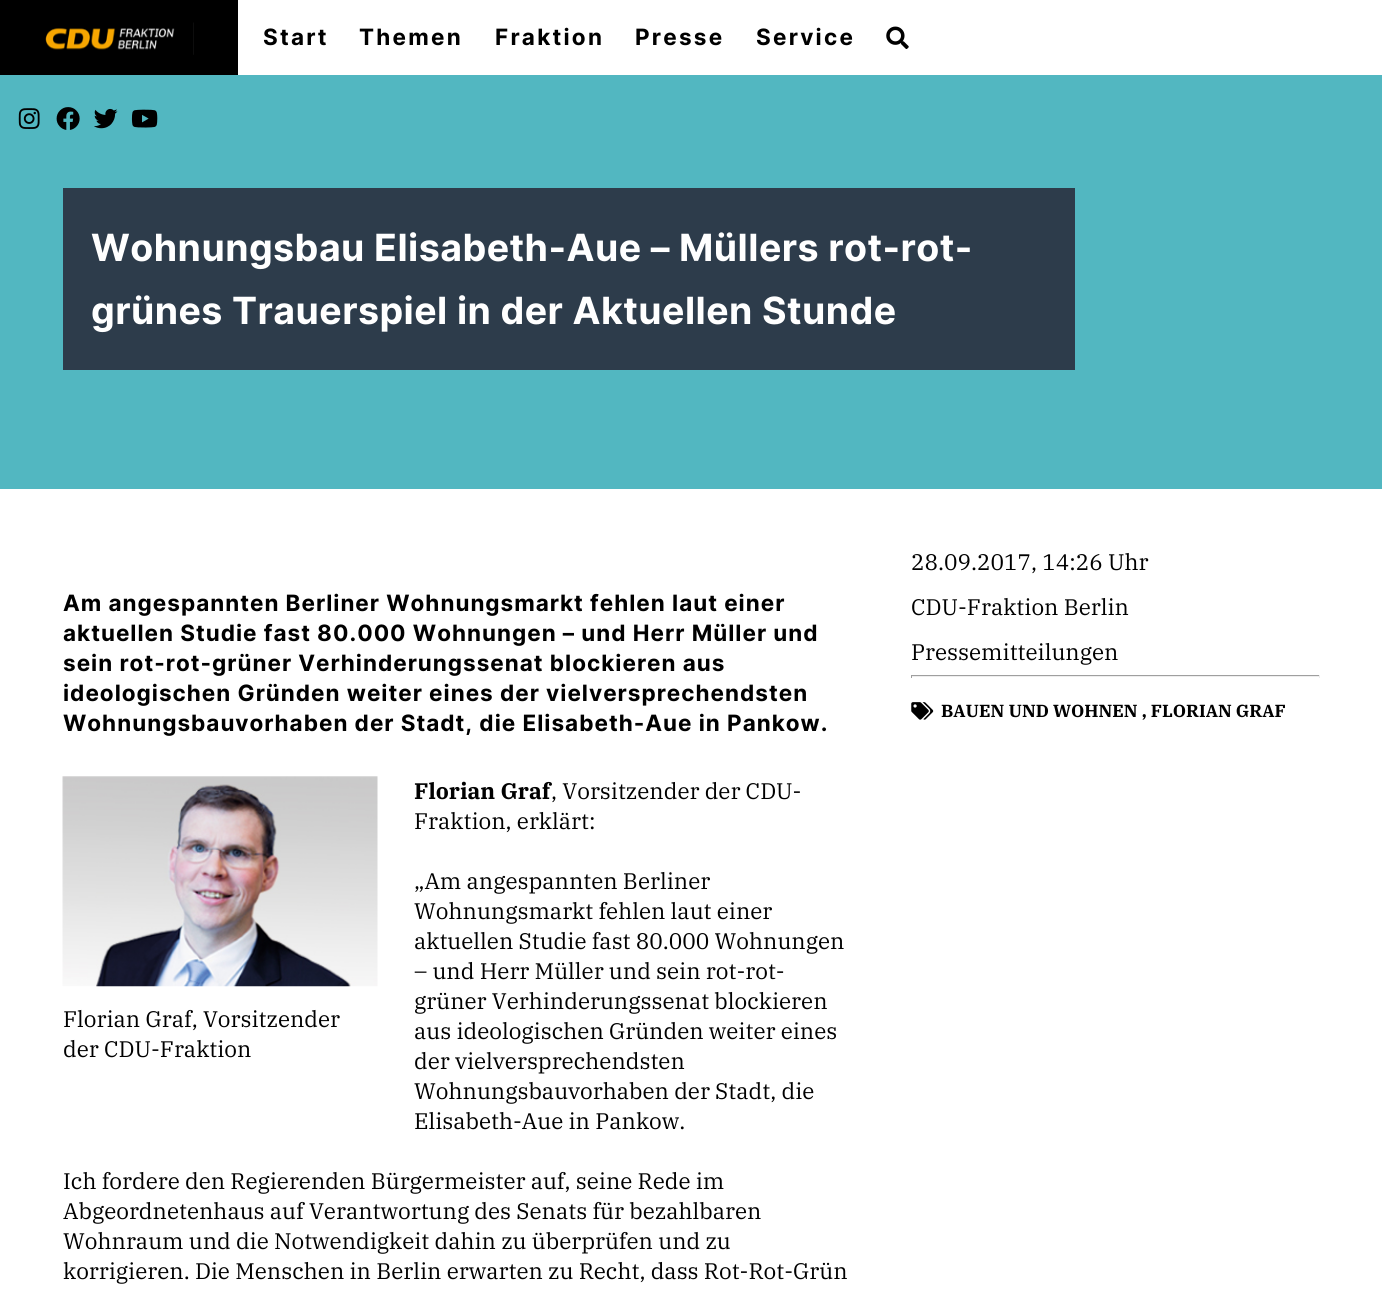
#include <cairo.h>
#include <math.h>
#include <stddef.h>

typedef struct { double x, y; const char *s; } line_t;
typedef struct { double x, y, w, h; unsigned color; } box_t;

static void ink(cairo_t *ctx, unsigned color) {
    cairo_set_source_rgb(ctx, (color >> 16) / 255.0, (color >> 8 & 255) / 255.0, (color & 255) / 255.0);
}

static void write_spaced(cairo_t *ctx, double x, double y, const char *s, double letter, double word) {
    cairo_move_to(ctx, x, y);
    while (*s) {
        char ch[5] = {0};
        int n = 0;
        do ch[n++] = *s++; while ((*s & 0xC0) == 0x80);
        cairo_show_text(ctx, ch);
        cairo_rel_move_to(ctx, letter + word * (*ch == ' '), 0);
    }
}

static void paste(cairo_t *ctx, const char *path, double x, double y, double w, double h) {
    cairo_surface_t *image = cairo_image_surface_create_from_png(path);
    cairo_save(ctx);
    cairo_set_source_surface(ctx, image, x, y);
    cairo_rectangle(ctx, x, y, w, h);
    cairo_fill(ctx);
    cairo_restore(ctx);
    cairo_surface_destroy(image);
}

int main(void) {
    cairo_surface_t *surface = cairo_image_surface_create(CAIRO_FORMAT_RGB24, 1382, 1296);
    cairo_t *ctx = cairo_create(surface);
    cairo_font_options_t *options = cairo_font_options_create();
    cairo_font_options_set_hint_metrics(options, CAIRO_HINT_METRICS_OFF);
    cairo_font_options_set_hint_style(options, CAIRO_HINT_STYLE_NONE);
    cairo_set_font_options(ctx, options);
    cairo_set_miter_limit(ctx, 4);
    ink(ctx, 0xFFFFFF);
    cairo_paint(ctx);
    ink(ctx, 0x000000);
    cairo_rectangle(ctx, 0, 0, 238, 75);
    cairo_fill(ctx);
    paste(ctx, "media/1.png", 45, 22, 149, 33);
    cairo_select_font_face(ctx, "Inter", CAIRO_FONT_SLANT_NORMAL, CAIRO_FONT_WEIGHT_BOLD);
    cairo_set_font_size(ctx, 22.5);
    {
        static const line_t items[] = {
            {263, 45, "Start"},
            {359, 45, "Themen"},
            {495, 45, "Fraktion"},
            {635, 45, "Presse"},
            {756, 45, "Service"},
        };
        for (size_t i = 0; i < sizeof items / sizeof *items; i++) {
            write_spaced(ctx, items[i].x, items[i].y, items[i].s, 2.25, 0);
        }
    }
    paste(ctx, "media/2.png", 886, 26, 23, 23);
    ink(ctx, 0x52B7C1);
    cairo_rectangle(ctx, 0, 75, 1382, 414);
    cairo_fill(ctx);
    paste(ctx, "media/3.png", 18, 108, 22, 21);
    paste(ctx, "media/4.png", 56, 107, 24, 23);
    paste(ctx, "media/5.png", 94, 108, 24, 21);
    paste(ctx, "media/6.png", 131, 109, 27, 19);
    ink(ctx, 0x2D3C4B);
    cairo_rectangle(ctx, 63, 188, 1012, 182);
    cairo_fill(ctx);
    cairo_set_font_size(ctx, 37.5);
    ink(ctx, 0xFFFFFF);
    write_spaced(ctx, 91, 261, "Wohnungsbau Elisabeth-Aue – Müllers rot-rot-", 0.45, 0);
    write_spaced(ctx, 91, 324, "grünes Trauerspiel in der Aktuellen Stunde", 0.45, 0);
    cairo_set_font_size(ctx, 22.5);
    ink(ctx, 0x000000);
    {
        static const line_t items[] = {
            {63, 611, "Am angespannten Berliner Wohnungsmarkt fehlen laut einer"},
            {63, 641, "aktuellen Studie fast 80.000 Wohnungen – und Herr Müller und"},
            {63, 671, "sein rot-rot-grüner Verhinderungssenat blockieren aus"},
            {63, 701, "ideologischen Gründen weiter eines der vielversprechendsten"},
            {63, 731, "Wohnungsbauvorhaben der Stadt, die Elisabeth-Aue in Pankow."},
        };
        for (size_t i = 0; i < sizeof items / sizeof *items; i++) {
            write_spaced(ctx, items[i].x, items[i].y, items[i].s, 1, 0);
        }
    }
    cairo_select_font_face(ctx, "IBM Plex Serif", CAIRO_FONT_SLANT_NORMAL, CAIRO_FONT_WEIGHT_BOLD);
    cairo_move_to(ctx, 414, 799);
    cairo_show_text(ctx, "Florian Graf");
    cairo_select_font_face(ctx, "IBM Plex Serif", CAIRO_FONT_SLANT_NORMAL, CAIRO_FONT_WEIGHT_NORMAL);
    {
        static const line_t items[] = {
            {551, 799, ", Vorsitzender der CDU-"},
            {414, 829, "Fraktion, erklärt:"},
            {414, 889, "„Am angespannten Berliner"},
            {414, 919, "Wohnungsmarkt fehlen laut einer"},
            {414, 949, "aktuellen Studie fast 80.000 Wohnungen"},
            {414, 979, "– und Herr Müller und sein rot-rot-"},
            {414, 1009, "grüner Verhinderungssenat blockieren"},
        };
        for (size_t i = 0; i < sizeof items / sizeof *items; i++) {
            cairo_move_to(ctx, items[i].x, items[i].y);
            cairo_show_text(ctx, items[i].s);
        }
    }
    paste(ctx, "media/7.png", 62, 776, 316, 211);
    {
        static const line_t items[] = {
            {63, 1027, "Florian Graf, Vorsitzender"},
            {63, 1057, "der CDU-Fraktion"},
            {414, 1039, "aus ideologischen Gründen weiter eines"},
            {414, 1069, "der vielversprechendsten"},
            {414, 1099, "Wohnungsbauvorhaben der Stadt, die"},
            {414, 1129, "Elisabeth-Aue in Pankow."},
            {63, 1189, "Ich fordere den Regierenden Bürgermeister auf, seine Rede im"},
            {63, 1219, "Abgeordnetenhaus auf Verantwortung des Senats für bezahlbaren"},
            {63, 1249, "Wohnraum und die Notwendigkeit dahin zu überprüfen und zu"},
            {63, 1279, "korrigieren. Die Menschen in Berlin erwarten zu Recht, dass Rot-Rot-Grün"},
            {911, 570, "28.09.2017, 14:26 Uhr"},
            {911, 615, "CDU-Fraktion Berlin"},
            {911, 660, "Pressemitteilungen"},
        };
        for (size_t i = 0; i < sizeof items / sizeof *items; i++) {
            cairo_move_to(ctx, items[i].x, items[i].y);
            cairo_show_text(ctx, items[i].s);
        }
    }
    {
        static const box_t items[] = {
            {911, 675, 409, 1, 0x9F9F9F},
            {1319, 675, 1, 3, 0xEEEEEE},
            {911, 676, 409, 1, 0xEEEEEE},
            {911, 675, 1, 3, 0x9F9F9F},
        };
        for (size_t i = 0; i < sizeof items / sizeof *items; i++) {
            ink(ctx, items[i].color);
            cairo_rectangle(ctx, items[i].x, items[i].y, items[i].w, items[i].h);
            cairo_fill(ctx);
        }
    }
    paste(ctx, "media/8.png", 911, 702, 23, 18);
    cairo_select_font_face(ctx, "IBM Plex Serif", CAIRO_FONT_SLANT_NORMAL, CAIRO_FONT_WEIGHT_BOLD);
    cairo_set_font_size(ctx, 17.5);
    ink(ctx, 0x000000);
    cairo_move_to(ctx, 941, 717);
    cairo_show_text(ctx, "BAUEN UND WOHNEN , FLORIAN GRAF");
    cairo_surface_write_to_png(surface, "image.png");
    cairo_font_options_destroy(options);
    cairo_destroy(ctx);
    cairo_surface_destroy(surface);
    return 0;
}
